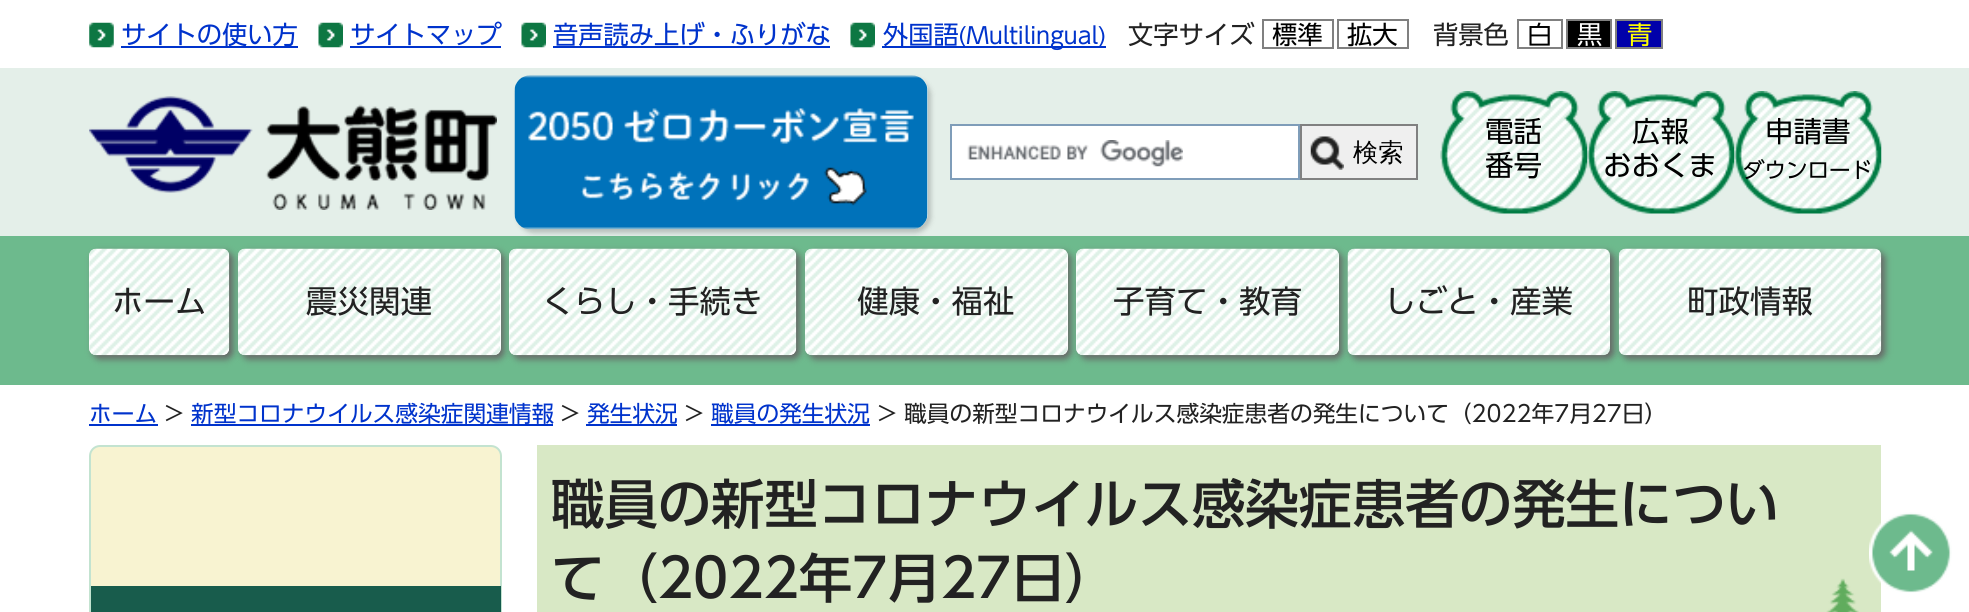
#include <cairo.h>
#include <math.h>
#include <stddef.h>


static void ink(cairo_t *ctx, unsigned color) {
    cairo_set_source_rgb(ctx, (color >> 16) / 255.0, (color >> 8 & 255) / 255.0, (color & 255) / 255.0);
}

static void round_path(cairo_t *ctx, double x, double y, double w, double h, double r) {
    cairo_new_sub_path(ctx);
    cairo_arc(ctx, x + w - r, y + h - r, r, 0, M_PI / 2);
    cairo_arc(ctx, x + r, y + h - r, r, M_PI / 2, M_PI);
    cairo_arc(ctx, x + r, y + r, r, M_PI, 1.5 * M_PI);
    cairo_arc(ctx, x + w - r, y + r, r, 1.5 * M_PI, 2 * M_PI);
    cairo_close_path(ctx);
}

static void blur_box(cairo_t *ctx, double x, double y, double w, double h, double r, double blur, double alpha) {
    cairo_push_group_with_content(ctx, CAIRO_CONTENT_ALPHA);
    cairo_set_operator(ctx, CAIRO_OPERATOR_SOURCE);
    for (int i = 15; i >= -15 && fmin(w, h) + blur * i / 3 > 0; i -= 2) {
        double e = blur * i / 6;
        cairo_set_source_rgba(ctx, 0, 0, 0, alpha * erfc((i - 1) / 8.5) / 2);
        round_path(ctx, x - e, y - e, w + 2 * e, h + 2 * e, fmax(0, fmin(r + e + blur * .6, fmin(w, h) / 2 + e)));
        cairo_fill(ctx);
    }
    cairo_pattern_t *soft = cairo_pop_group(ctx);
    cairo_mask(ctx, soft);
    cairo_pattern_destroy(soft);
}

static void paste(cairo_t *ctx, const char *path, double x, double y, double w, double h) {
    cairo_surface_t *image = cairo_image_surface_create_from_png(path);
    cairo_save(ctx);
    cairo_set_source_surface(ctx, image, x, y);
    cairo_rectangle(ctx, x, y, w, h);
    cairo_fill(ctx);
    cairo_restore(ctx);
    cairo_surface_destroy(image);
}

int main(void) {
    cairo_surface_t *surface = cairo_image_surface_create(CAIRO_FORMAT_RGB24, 1969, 612);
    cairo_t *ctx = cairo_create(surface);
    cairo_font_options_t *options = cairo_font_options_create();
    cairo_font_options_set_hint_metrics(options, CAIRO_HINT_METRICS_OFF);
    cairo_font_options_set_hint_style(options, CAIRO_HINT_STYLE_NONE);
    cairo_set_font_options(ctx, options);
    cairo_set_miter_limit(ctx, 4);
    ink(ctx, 0xFFFFFF);
    cairo_paint(ctx);
    ink(ctx, 0xE4EFE9);
    cairo_rectangle(ctx, 0, 68, 1969, 168);
    cairo_fill(ctx);
    paste(ctx, "media/1.png", 89, 22, 25, 26);
    ink(ctx, 0x0033CC);
    cairo_rectangle(ctx, 121, 46, 177, 2);
    cairo_fill(ctx);
    cairo_select_font_face(ctx, "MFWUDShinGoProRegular", CAIRO_FONT_SLANT_NORMAL, CAIRO_FONT_WEIGHT_NORMAL);
    cairo_set_font_size(ctx, 25.25);
    cairo_move_to(ctx, 121, 44);
    cairo_show_text(ctx, "サイトの使い方");
    paste(ctx, "media/2.png", 318, 22, 25, 26);
    cairo_move_to(ctx, 350, 44);
    cairo_show_text(ctx, "サイトマップ");
    cairo_rectangle(ctx, 350, 46, 151, 2);
    cairo_fill(ctx);
    paste(ctx, "media/2.png", 521, 22, 25, 26);
    cairo_rectangle(ctx, 553, 46, 277, 2);
    cairo_fill(ctx);
    cairo_move_to(ctx, 553, 44);
    cairo_show_text(ctx, "音声読み上げ・ふりがな");
    paste(ctx, "media/2.png", 850, 22, 25, 26);
    cairo_rectangle(ctx, 882, 46, 224, 2);
    cairo_fill(ctx);
    cairo_move_to(ctx, 883, 44);
    cairo_show_text(ctx, "外国語");
    cairo_set_font_size(ctx, 22.7);
    cairo_move_to(ctx, 958, 44);
    cairo_show_text(ctx, "(Multilingual)");
    cairo_set_font_size(ctx, 25.25);
    ink(ctx, 0x222222);
    cairo_move_to(ctx, 1128, 44);
    cairo_show_text(ctx, "文字サイズ");
    cairo_rectangle(ctx, 1263, 20, 70, 28);
    ink(ctx, 0x808080);
    cairo_stroke(ctx);
    ink(ctx, 0x000000);
    cairo_move_to(ctx, 1272, 44);
    cairo_show_text(ctx, "標準");
    cairo_rectangle(ctx, 1338, 20, 70, 28);
    ink(ctx, 0x808080);
    cairo_stroke(ctx);
    ink(ctx, 0x000000);
    cairo_move_to(ctx, 1347, 44);
    cairo_show_text(ctx, "拡大");
    ink(ctx, 0x222222);
    cairo_move_to(ctx, 1433, 44);
    cairo_show_text(ctx, "背景色");
    cairo_rectangle(ctx, 1518, 20, 44, 28);
    ink(ctx, 0x808080);
    cairo_stroke(ctx);
    ink(ctx, 0x000000);
    cairo_move_to(ctx, 1527, 44);
    cairo_show_text(ctx, "白");
    cairo_rectangle(ctx, 1567, 20, 44, 28);
    cairo_fill_preserve(ctx);
    ink(ctx, 0x808080);
    cairo_stroke(ctx);
    ink(ctx, 0xFFFFFF);
    cairo_move_to(ctx, 1577, 44);
    cairo_show_text(ctx, "黒");
    ink(ctx, 0x0000AA);
    cairo_rectangle(ctx, 1616, 20, 46, 28);
    cairo_fill_preserve(ctx);
    ink(ctx, 0x808080);
    cairo_stroke(ctx);
    ink(ctx, 0xFFFF00);
    cairo_move_to(ctx, 1627, 44);
    cairo_show_text(ctx, "青");
    paste(ctx, "media/3.png", 89, 96, 408, 114);
    ink(ctx, 0x6DBA8D);
    cairo_rectangle(ctx, 0, 236, 1969, 149);
    cairo_fill(ctx);
    cairo_save(ctx);
    cairo_set_fill_rule(ctx, CAIRO_FILL_RULE_EVEN_ODD);
    cairo_new_path(ctx);
    cairo_move_to(ctx, 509, 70);
    cairo_line_to(ctx, 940, 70);
    cairo_line_to(ctx, 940, 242);
    cairo_line_to(ctx, 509, 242);
    cairo_close_path(ctx);
    cairo_move_to(ctx, 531, 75);
    cairo_line_to(ctx, 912, 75);
    cairo_curve_to(ctx, 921, 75, 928, 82, 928, 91);
    cairo_line_to(ctx, 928, 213);
    cairo_curve_to(ctx, 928, 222, 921, 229, 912, 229);
    cairo_line_to(ctx, 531, 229);
    cairo_curve_to(ctx, 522, 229, 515, 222, 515, 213);
    cairo_line_to(ctx, 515, 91);
    cairo_curve_to(ctx, 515, 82, 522, 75, 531, 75);
    cairo_close_path(ctx);
    cairo_clip(ctx);
    ink(ctx, 0x000000);
    blur_box(ctx, 518, 79, 413, 154, 16, 2.5, 0.2);
    cairo_restore(ctx);
    paste(ctx, "media/4.png", 514, 75, 414, 155);
    ink(ctx, 0xFFFFFF);
    cairo_rectangle(ctx, 952, 126, 346, 52);
    cairo_fill(ctx);
    paste(ctx, "media/5.png", 967, 140, 216, 27);
    cairo_rectangle(ctx, 951, 125, 348, 54);
    ink(ctx, 0x7F9DB9);
    cairo_stroke(ctx);
    ink(ctx, 0xEFEFEF);
    cairo_rectangle(ctx, 1302, 126, 114, 52);
    cairo_fill(ctx);
    paste(ctx, "media/6.png", 1310, 136, 34, 34);
    cairo_rectangle(ctx, 1301, 125, 116, 54);
    ink(ctx, 0x808080);
    cairo_stroke(ctx);
    cairo_select_font_face(ctx, "WenQuanYi Zen Hei Medium", CAIRO_FONT_SLANT_NORMAL, CAIRO_FONT_WEIGHT_NORMAL);
    ink(ctx, 0x000000);
    cairo_move_to(ctx, 1353, 161);
    cairo_show_text(ctx, "検索");
    paste(ctx, "media/7.png", 1440, 91, 148, 123);
    cairo_select_font_face(ctx, "MFWUDShinGoProRegular", CAIRO_FONT_SLANT_NORMAL, CAIRO_FONT_WEIGHT_NORMAL);
    cairo_set_font_size(ctx, 28.5);
    cairo_move_to(ctx, 1485, 142);
    cairo_show_text(ctx, "電話");
    cairo_move_to(ctx, 1485, 176);
    cairo_show_text(ctx, "番号");
    paste(ctx, "media/8.png", 1587, 91, 148, 123);
    cairo_move_to(ctx, 1632, 142);
    cairo_show_text(ctx, "広報");
    cairo_move_to(ctx, 1603, 176);
    cairo_show_text(ctx, "おおくま");
    paste(ctx, "media/9.png", 1734, 91, 148, 123);
    cairo_move_to(ctx, 1765, 142);
    cairo_show_text(ctx, "申請書");
    cairo_set_font_size(ctx, 21.5);
    cairo_move_to(ctx, 1743, 178);
    cairo_show_text(ctx, "ダウンロード");
    ink(ctx, 0x666666);
    blur_box(ctx, 93, 252, 140, 107, 7, 3.5, 1);
    ink(ctx, 0xFFFFFF);
    round_path(ctx, 89, 249, 140, 106, 7);
    cairo_fill(ctx);
    paste(ctx, "media/10.png", 89, 248, 141, 108);
    cairo_set_font_size(ctx, 31.5);
    ink(ctx, 0x222222);
    cairo_move_to(ctx, 112, 313);
    cairo_show_text(ctx, "ホーム");
    ink(ctx, 0x666666);
    blur_box(ctx, 242, 252, 262, 107, 7, 3.5, 1);
    ink(ctx, 0xFFFFFF);
    round_path(ctx, 238, 249, 263, 106, 7);
    cairo_fill(ctx);
    paste(ctx, "media/11.png", 238, 248, 263, 108);
    ink(ctx, 0x222222);
    cairo_move_to(ctx, 306, 313);
    cairo_show_text(ctx, "震災関連");
    ink(ctx, 0x666666);
    blur_box(ctx, 513, 252, 287, 107, 7, 3.5, 1);
    ink(ctx, 0xFFFFFF);
    round_path(ctx, 509, 249, 287, 106, 7);
    cairo_fill(ctx);
    paste(ctx, "media/12.png", 509, 248, 288, 108);
    ink(ctx, 0x222222);
    cairo_move_to(ctx, 542, 313);
    cairo_show_text(ctx, "くらし・手続き");
    ink(ctx, 0x666666);
    blur_box(ctx, 809, 252, 262, 107, 7, 3.5, 1);
    ink(ctx, 0xFFFFFF);
    round_path(ctx, 805, 249, 263, 106, 7);
    cairo_fill(ctx);
    paste(ctx, "media/13.png", 805, 248, 263, 108);
    ink(ctx, 0x222222);
    cairo_move_to(ctx, 857, 313);
    cairo_show_text(ctx, "健康・福祉");
    ink(ctx, 0x666666);
    blur_box(ctx, 1080, 252, 262, 107, 7, 3.5, 1);
    ink(ctx, 0xFFFFFF);
    round_path(ctx, 1076, 249, 263, 106, 7);
    cairo_fill(ctx);
    paste(ctx, "media/14.png", 1076, 248, 263, 108);
    ink(ctx, 0x222222);
    cairo_move_to(ctx, 1113, 313);
    cairo_show_text(ctx, "子育て・教育");
    ink(ctx, 0x666666);
    blur_box(ctx, 1351, 252, 263, 107, 7, 3.5, 1);
    paste(ctx, "media/15.png", 1347, 248, 263, 108);
    ink(ctx, 0x222222);
    cairo_move_to(ctx, 1384, 313);
    cairo_show_text(ctx, "しごと・産業");
    ink(ctx, 0x666666);
    blur_box(ctx, 1622, 252, 263, 107, 7, 3.5, 1);
    paste(ctx, "media/16.png", 1618, 248, 264, 108);
    ink(ctx, 0x222222);
    cairo_move_to(ctx, 1687, 313);
    cairo_show_text(ctx, "町政情報");
    cairo_set_font_size(ctx, 22.7);
    ink(ctx, 0x0033CC);
    cairo_move_to(ctx, 89, 422);
    cairo_show_text(ctx, "ホーム");
    cairo_rectangle(ctx, 89, 424, 69, 2);
    cairo_fill(ctx);
    ink(ctx, 0x222222);
    cairo_move_to(ctx, 165, 422);
    cairo_show_text(ctx, ">");
    ink(ctx, 0x0033CC);
    cairo_move_to(ctx, 191, 422);
    cairo_show_text(ctx, "新型コロナウイルス感染症関連情報");
    cairo_rectangle(ctx, 191, 424, 362, 2);
    cairo_fill(ctx);
    ink(ctx, 0x222222);
    cairo_move_to(ctx, 561, 422);
    cairo_show_text(ctx, ">");
    ink(ctx, 0x0033CC);
    cairo_move_to(ctx, 587, 422);
    cairo_show_text(ctx, "発生状況");
    cairo_rectangle(ctx, 586, 424, 91, 2);
    cairo_fill(ctx);
    ink(ctx, 0x222222);
    cairo_move_to(ctx, 685, 422);
    cairo_show_text(ctx, ">");
    ink(ctx, 0x0033CC);
    cairo_move_to(ctx, 711, 422);
    cairo_show_text(ctx, "職員の発生状況");
    cairo_rectangle(ctx, 711, 424, 159, 2);
    cairo_fill(ctx);
    ink(ctx, 0x222222);
    cairo_move_to(ctx, 878, 422);
    cairo_show_text(ctx, "> 職員の新型コロナウイルス感染症患者の発生について（2022年7月27日）");
    ink(ctx, 0xF8F3D1);
    round_path(ctx, 90, 446, 411, 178, 10);
    cairo_fill_preserve(ctx);
    ink(ctx, 0xC3E3D0);
    cairo_stroke(ctx);
    cairo_set_source_rgba(ctx, 0, 0.298, 0.247, 0.9);
    cairo_rectangle(ctx, 91, 586, 410, 26);
    cairo_fill(ctx);
    ink(ctx, 0xD8E8C5);
    cairo_rectangle(ctx, 537, 445, 1344, 167);
    cairo_fill(ctx);
    paste(ctx, "media/17.png", 1826, 578, 33, 34);
    cairo_select_font_face(ctx, "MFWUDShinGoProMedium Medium", CAIRO_FONT_SLANT_NORMAL, CAIRO_FONT_WEIGHT_NORMAL);
    cairo_set_font_size(ctx, 53.4);
    ink(ctx, 0x222222);
    cairo_move_to(ctx, 551, 524);
    cairo_show_text(ctx, "職員の新型コロナウイルス感染症患者の発生につい");
    cairo_move_to(ctx, 551, 598);
    cairo_show_text(ctx, "て（2022年7月27日）");
    paste(ctx, "media/18.png", 1869, 512, 83, 81);
    cairo_surface_write_to_png(surface, "image.png");
    cairo_font_options_destroy(options);
    cairo_destroy(ctx);
    cairo_surface_destroy(surface);
    return 0;
}
